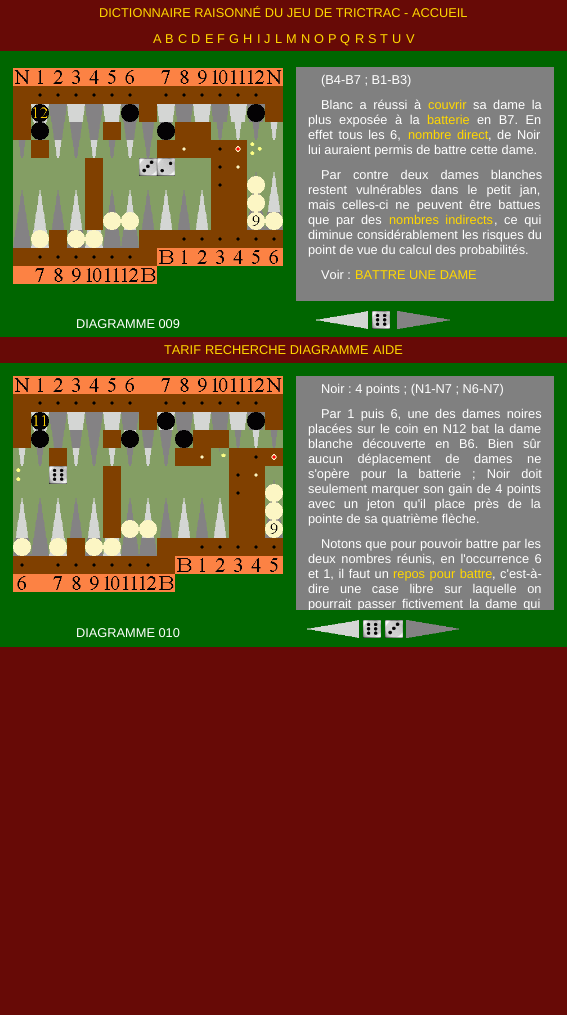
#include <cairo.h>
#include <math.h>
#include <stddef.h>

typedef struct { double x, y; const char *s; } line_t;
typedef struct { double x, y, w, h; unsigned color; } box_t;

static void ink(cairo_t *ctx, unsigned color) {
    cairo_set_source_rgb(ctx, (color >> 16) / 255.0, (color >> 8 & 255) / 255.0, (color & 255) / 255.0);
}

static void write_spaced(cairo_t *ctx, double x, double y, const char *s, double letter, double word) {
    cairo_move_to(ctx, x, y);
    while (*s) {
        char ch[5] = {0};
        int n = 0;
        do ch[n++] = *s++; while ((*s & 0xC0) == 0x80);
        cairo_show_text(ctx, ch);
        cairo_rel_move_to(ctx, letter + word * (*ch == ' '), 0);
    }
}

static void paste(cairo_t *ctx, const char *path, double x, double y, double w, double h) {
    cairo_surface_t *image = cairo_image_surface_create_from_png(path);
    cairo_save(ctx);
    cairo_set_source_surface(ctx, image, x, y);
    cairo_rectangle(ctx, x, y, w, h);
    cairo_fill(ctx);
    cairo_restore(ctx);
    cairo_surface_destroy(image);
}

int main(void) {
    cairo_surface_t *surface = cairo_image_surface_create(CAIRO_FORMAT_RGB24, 567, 1015);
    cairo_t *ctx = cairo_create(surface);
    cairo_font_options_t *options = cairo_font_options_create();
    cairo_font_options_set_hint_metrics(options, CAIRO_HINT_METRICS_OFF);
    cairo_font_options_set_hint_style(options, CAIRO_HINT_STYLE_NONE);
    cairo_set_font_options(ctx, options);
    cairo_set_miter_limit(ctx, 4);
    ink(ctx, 0x670A06);
    cairo_paint(ctx);
    cairo_select_font_face(ctx, "Liberation Sans", CAIRO_FONT_SLANT_NORMAL, CAIRO_FONT_WEIGHT_NORMAL);
    cairo_set_font_size(ctx, 12.8);
    ink(ctx, 0xFFD700);
    {
        static const line_t items[] = {
            {99, 17, "DICTIONNAIRE RAISONNÉ DU JEU DE TRICTRAC - ACCUEIL"},
            {153, 43, "A"},
            {165, 43, "B"},
            {178, 43, "C"},
            {191, 43, "D"},
            {205, 43, "E"},
            {217, 43, "F"},
            {229, 43, "G"},
            {243, 43, "H"},
            {257, 43, "I"},
            {264, 43, "J"},
            {275, 43, "L"},
            {286, 43, "M"},
            {301, 43, "N"},
            {314, 43, "O"},
            {328, 43, "P"},
            {340, 43, "Q"},
            {355, 43, "R"},
            {368, 43, "S"},
            {380, 43, "T"},
            {392, 43, "U"},
            {406, 43, "V"},
        };
        for (size_t i = 0; i < sizeof items / sizeof *items; i++) {
            cairo_move_to(ctx, items[i].x, items[i].y);
            cairo_show_text(ctx, items[i].s);
        }
    }
    ink(ctx, 0x006600);
    cairo_rectangle(ctx, 0, 51, 567, 596);
    cairo_fill(ctx);
    paste(ctx, "media/1.png", 13, 68, 18, 18);
    paste(ctx, "media/2.png", 31, 68, 18, 18);
    paste(ctx, "media/3.png", 49, 68, 18, 18);
    paste(ctx, "media/4.png", 67, 68, 18, 18);
    paste(ctx, "media/5.png", 85, 68, 18, 18);
    paste(ctx, "media/6.png", 103, 68, 18, 18);
    paste(ctx, "media/7.png", 121, 68, 18, 18);
    ink(ctx, 0xFC8244);
    cairo_rectangle(ctx, 139, 68, 18, 18);
    cairo_fill(ctx);
    paste(ctx, "media/8.png", 157, 68, 18, 18);
    paste(ctx, "media/9.png", 175, 68, 18, 18);
    paste(ctx, "media/10.png", 193, 68, 18, 18);
    paste(ctx, "media/11.png", 211, 68, 18, 18);
    paste(ctx, "media/12.png", 229, 68, 18, 18);
    paste(ctx, "media/13.png", 247, 68, 18, 18);
    paste(ctx, "media/1.png", 265, 68, 18, 18);
    ink(ctx, 0x804000);
    cairo_rectangle(ctx, 13, 86, 18, 54);
    cairo_fill(ctx);
    paste(ctx, "media/14.png", 31, 86, 18, 18);
    paste(ctx, "media/14.png", 49, 86, 18, 18);
    paste(ctx, "media/14.png", 67, 86, 18, 18);
    paste(ctx, "media/14.png", 85, 86, 18, 18);
    paste(ctx, "media/14.png", 103, 86, 18, 18);
    paste(ctx, "media/14.png", 121, 86, 18, 18);
    cairo_rectangle(ctx, 139, 86, 18, 36);
    cairo_fill(ctx);
    paste(ctx, "media/14.png", 157, 86, 18, 18);
    paste(ctx, "media/14.png", 175, 86, 18, 18);
    paste(ctx, "media/14.png", 193, 86, 18, 18);
    paste(ctx, "media/14.png", 211, 86, 18, 18);
    paste(ctx, "media/14.png", 229, 86, 18, 18);
    paste(ctx, "media/14.png", 247, 86, 18, 18);
    cairo_rectangle(ctx, 265, 86, 18, 36);
    cairo_fill(ctx);
    paste(ctx, "media/15.png", 31, 104, 18, 18);
    paste(ctx, "media/16.png", 49, 104, 18, 18);
    paste(ctx, "media/17.png", 67, 104, 18, 18);
    paste(ctx, "media/16.png", 85, 104, 18, 18);
    paste(ctx, "media/17.png", 103, 104, 18, 18);
    paste(ctx, "media/18.png", 121, 104, 18, 18);
    paste(ctx, "media/17.png", 157, 104, 18, 18);
    paste(ctx, "media/16.png", 175, 104, 18, 18);
    paste(ctx, "media/17.png", 193, 104, 18, 18);
    paste(ctx, "media/16.png", 211, 104, 18, 18);
    paste(ctx, "media/17.png", 229, 104, 18, 18);
    paste(ctx, "media/18.png", 247, 104, 18, 18);
    paste(ctx, "media/19.png", 31, 122, 18, 18);
    paste(ctx, "media/20.png", 49, 122, 18, 18);
    paste(ctx, "media/20.png", 67, 122, 18, 18);
    paste(ctx, "media/20.png", 85, 122, 18, 18);
    cairo_rectangle(ctx, 103, 122, 18, 18);
    cairo_fill(ctx);
    paste(ctx, "media/20.png", 121, 122, 18, 18);
    paste(ctx, "media/20.png", 139, 122, 18, 18);
    paste(ctx, "media/21.png", 157, 122, 18, 18);
    cairo_rectangle(ctx, 175, 122, 36, 18);
    cairo_fill(ctx);
    paste(ctx, "media/22.png", 211, 122, 18, 18);
    paste(ctx, "media/23.png", 229, 122, 18, 18);
    paste(ctx, "media/22.png", 247, 122, 18, 18);
    paste(ctx, "media/23.png", 265, 122, 18, 18);
    paste(ctx, "media/22.png", 13, 140, 18, 18);
    cairo_rectangle(ctx, 31, 140, 18, 18);
    cairo_fill(ctx);
    paste(ctx, "media/23.png", 49, 140, 18, 18);
    paste(ctx, "media/22.png", 67, 140, 18, 18);
    paste(ctx, "media/23.png", 85, 140, 18, 18);
    paste(ctx, "media/22.png", 103, 140, 18, 18);
    paste(ctx, "media/23.png", 121, 140, 18, 18);
    paste(ctx, "media/22.png", 139, 140, 18, 18);
    cairo_rectangle(ctx, 157, 140, 18, 18);
    cairo_fill(ctx);
    paste(ctx, "media/24.png", 175, 140, 18, 18);
    cairo_rectangle(ctx, 193, 140, 18, 18);
    cairo_fill(ctx);
    paste(ctx, "media/14.png", 211, 140, 18, 18);
    paste(ctx, "media/25.png", 229, 140, 18, 18);
    paste(ctx, "media/26.png", 247, 140, 18, 18);
    {
        static const box_t items[] = {
            {265, 140, 18, 18, 0x849E64},
            {13, 158, 72, 18, 0x849E64},
            {85, 158, 18, 72, 0x804000},
            {103, 158, 36, 18, 0x849E64},
        };
        for (size_t i = 0; i < sizeof items / sizeof *items; i++) {
            ink(ctx, items[i].color);
            cairo_rectangle(ctx, items[i].x, items[i].y, items[i].w, items[i].h);
            cairo_fill(ctx);
        }
    }
    paste(ctx, "media/27.png", 139, 158, 18, 18);
    paste(ctx, "media/28.png", 157, 158, 18, 18);
    cairo_rectangle(ctx, 175, 158, 36, 18);
    cairo_fill(ctx);
    paste(ctx, "media/14.png", 211, 158, 18, 18);
    paste(ctx, "media/24.png", 229, 158, 18, 18);
    paste(ctx, "media/29.png", 247, 158, 18, 18);
    paste(ctx, "media/30.png", 265, 158, 18, 18);
    paste(ctx, "media/29.png", 13, 176, 18, 18);
    paste(ctx, "media/30.png", 31, 176, 18, 18);
    paste(ctx, "media/29.png", 49, 176, 18, 18);
    paste(ctx, "media/30.png", 67, 176, 18, 18);
    paste(ctx, "media/29.png", 103, 176, 18, 18);
    paste(ctx, "media/30.png", 121, 176, 18, 18);
    paste(ctx, "media/29.png", 139, 176, 18, 18);
    paste(ctx, "media/30.png", 157, 176, 18, 18);
    paste(ctx, "media/29.png", 175, 176, 18, 18);
    paste(ctx, "media/30.png", 193, 176, 18, 18);
    paste(ctx, "media/14.png", 211, 176, 18, 18);
    ink(ctx, 0x804000);
    cairo_rectangle(ctx, 229, 176, 18, 18);
    cairo_fill(ctx);
    paste(ctx, "media/31.png", 247, 176, 18, 18);
    paste(ctx, "media/32.png", 265, 176, 18, 18);
    paste(ctx, "media/33.png", 13, 194, 18, 18);
    paste(ctx, "media/32.png", 31, 194, 18, 18);
    paste(ctx, "media/33.png", 49, 194, 18, 18);
    paste(ctx, "media/32.png", 67, 194, 18, 18);
    paste(ctx, "media/33.png", 103, 194, 18, 18);
    paste(ctx, "media/32.png", 121, 194, 18, 18);
    paste(ctx, "media/33.png", 139, 194, 18, 18);
    paste(ctx, "media/32.png", 157, 194, 18, 18);
    paste(ctx, "media/33.png", 175, 194, 18, 18);
    paste(ctx, "media/32.png", 193, 194, 18, 18);
    cairo_rectangle(ctx, 211, 194, 36, 18);
    cairo_fill(ctx);
    paste(ctx, "media/34.png", 247, 194, 18, 18);
    paste(ctx, "media/35.png", 265, 194, 18, 18);
    paste(ctx, "media/36.png", 13, 212, 18, 18);
    paste(ctx, "media/35.png", 31, 212, 18, 18);
    paste(ctx, "media/37.png", 49, 212, 18, 18);
    paste(ctx, "media/38.png", 67, 212, 18, 18);
    paste(ctx, "media/34.png", 103, 212, 18, 18);
    paste(ctx, "media/39.png", 121, 212, 18, 18);
    paste(ctx, "media/37.png", 139, 212, 18, 18);
    paste(ctx, "media/38.png", 157, 212, 18, 18);
    paste(ctx, "media/37.png", 175, 212, 18, 18);
    paste(ctx, "media/38.png", 193, 212, 18, 18);
    cairo_rectangle(ctx, 211, 212, 36, 18);
    cairo_fill(ctx);
    paste(ctx, "media/40.png", 247, 212, 18, 18);
    paste(ctx, "media/41.png", 265, 212, 18, 18);
    paste(ctx, "media/42.png", 13, 230, 18, 18);
    paste(ctx, "media/43.png", 31, 230, 18, 18);
    cairo_rectangle(ctx, 49, 230, 18, 18);
    cairo_fill(ctx);
    paste(ctx, "media/41.png", 67, 230, 18, 18);
    paste(ctx, "media/43.png", 85, 230, 18, 18);
    paste(ctx, "media/42.png", 103, 230, 18, 18);
    paste(ctx, "media/42.png", 121, 230, 18, 18);
    cairo_rectangle(ctx, 139, 230, 36, 18);
    cairo_fill(ctx);
    paste(ctx, "media/14.png", 175, 230, 18, 18);
    paste(ctx, "media/14.png", 193, 230, 18, 18);
    paste(ctx, "media/14.png", 211, 230, 18, 18);
    paste(ctx, "media/14.png", 229, 230, 18, 18);
    paste(ctx, "media/14.png", 247, 230, 18, 18);
    paste(ctx, "media/14.png", 265, 230, 18, 18);
    cairo_rectangle(ctx, 13, 248, 18, 18);
    cairo_fill(ctx);
    paste(ctx, "media/14.png", 31, 248, 18, 18);
    paste(ctx, "media/14.png", 49, 248, 18, 18);
    paste(ctx, "media/14.png", 67, 248, 18, 18);
    paste(ctx, "media/14.png", 85, 248, 18, 18);
    paste(ctx, "media/14.png", 103, 248, 18, 18);
    paste(ctx, "media/14.png", 121, 248, 18, 18);
    cairo_rectangle(ctx, 139, 248, 18, 18);
    cairo_fill(ctx);
    paste(ctx, "media/44.png", 157, 248, 18, 18);
    paste(ctx, "media/2.png", 175, 248, 18, 18);
    paste(ctx, "media/45.png", 193, 248, 18, 18);
    paste(ctx, "media/46.png", 211, 248, 18, 18);
    paste(ctx, "media/47.png", 229, 248, 18, 18);
    paste(ctx, "media/48.png", 247, 248, 18, 18);
    paste(ctx, "media/49.png", 265, 248, 18, 18);
    ink(ctx, 0xFC8244);
    cairo_rectangle(ctx, 13, 266, 18, 18);
    cairo_fill(ctx);
    paste(ctx, "media/50.png", 31, 266, 18, 18);
    paste(ctx, "media/9.png", 49, 266, 18, 18);
    paste(ctx, "media/51.png", 67, 266, 18, 18);
    paste(ctx, "media/11.png", 85, 266, 18, 18);
    paste(ctx, "media/12.png", 103, 266, 18, 18);
    paste(ctx, "media/52.png", 121, 266, 18, 18);
    paste(ctx, "media/53.png", 139, 266, 18, 18);
    ink(ctx, 0x808080);
    cairo_rectangle(ctx, 296, 67, 258, 234);
    cairo_fill(ctx);
    ink(ctx, 0xFFFFFF);
    cairo_move_to(ctx, 321, 84);
    cairo_show_text(ctx, "(B4-B7 ; B1-B3)");
    write_spaced(ctx, 321, 109, "Blanc a réussi à", 0, 3);
    ink(ctx, 0xFFD700);
    cairo_move_to(ctx, 428, 109);
    cairo_show_text(ctx, "couvrir");
    ink(ctx, 0xFFFFFF);
    write_spaced(ctx, 473, 109, "sa dame la", 0, 3);
    write_spaced(ctx, 308, 124, "plus exposée à la", 0, 4);
    ink(ctx, 0xFFD700);
    cairo_move_to(ctx, 427, 124);
    cairo_show_text(ctx, "batterie");
    ink(ctx, 0xFFFFFF);
    write_spaced(ctx, 477, 124, "en B7. En", 0, 4);
    write_spaced(ctx, 308, 139, "effet tous les 6,", 0, 2);
    ink(ctx, 0xFFD700);
    write_spaced(ctx, 408, 139, "nombre direct", 0, 2);
    ink(ctx, 0xFFFFFF);
    write_spaced(ctx, 488, 139, ", de Noir", 0, 2);
    cairo_move_to(ctx, 308, 154);
    cairo_show_text(ctx, "lui auraient permis de battre cette dame.");
    write_spaced(ctx, 321, 179, "Par contre deux dames blanches", 0, 8.5);
    write_spaced(ctx, 308, 194, "restent vulnérables dans le petit jan,", 0, 5.5);
    write_spaced(ctx, 308, 209, "mais celles-ci ne peuvent être battues", 0, 3.5);
    write_spaced(ctx, 308, 224, "que par des", 0, 3);
    ink(ctx, 0xFFD700);
    write_spaced(ctx, 389, 224, "nombres indirects", 0, 3);
    ink(ctx, 0xFFFFFF);
    write_spaced(ctx, 494, 224, ", ce qui", 0, 3);
    write_spaced(ctx, 308, 239, "diminue considérablement les risques du", 0, 0.5);
    cairo_move_to(ctx, 308, 254);
    cairo_show_text(ctx, "point de vue du calcul des probabilités.");
    cairo_move_to(ctx, 321, 279);
    cairo_show_text(ctx, "Voir :");
    ink(ctx, 0xFFD700);
    cairo_move_to(ctx, 355, 279);
    cairo_show_text(ctx, "BATTRE UNE DAME");
    ink(ctx, 0xFFFFFF);
    cairo_move_to(ctx, 76, 328);
    cairo_show_text(ctx, "DIAGRAMME 009");
    paste(ctx, "media/54.png", 316, 311, 52, 18);
    paste(ctx, "media/55.png", 372, 311, 18, 18);
    paste(ctx, "media/56.png", 397, 311, 53, 18);
    ink(ctx, 0x670A06);
    cairo_rectangle(ctx, 0, 337, 567, 26);
    cairo_fill(ctx);
    ink(ctx, 0xFFD700);
    {
        static const line_t items[] = {
            {164, 354, "TARIF"},
            {205, 354, "RECHERCHE DIAGRAMME"},
            {373, 354, "AIDE"},
        };
        for (size_t i = 0; i < sizeof items / sizeof *items; i++) {
            cairo_move_to(ctx, items[i].x, items[i].y);
            cairo_show_text(ctx, items[i].s);
        }
    }
    paste(ctx, "media/57.png", 13, 376, 18, 18);
    paste(ctx, "media/2.png", 31, 376, 18, 18);
    paste(ctx, "media/45.png", 49, 376, 18, 18);
    paste(ctx, "media/46.png", 67, 376, 18, 18);
    paste(ctx, "media/47.png", 85, 376, 18, 18);
    paste(ctx, "media/48.png", 103, 376, 18, 18);
    paste(ctx, "media/58.png", 121, 376, 18, 18);
    ink(ctx, 0xFC8244);
    cairo_rectangle(ctx, 139, 376, 18, 18);
    cairo_fill(ctx);
    paste(ctx, "media/59.png", 157, 376, 18, 18);
    paste(ctx, "media/60.png", 175, 376, 18, 18);
    paste(ctx, "media/61.png", 193, 376, 18, 18);
    paste(ctx, "media/11.png", 211, 376, 18, 18);
    paste(ctx, "media/12.png", 229, 376, 18, 18);
    paste(ctx, "media/62.png", 247, 376, 18, 18);
    paste(ctx, "media/57.png", 265, 376, 18, 18);
    ink(ctx, 0x804000);
    cairo_rectangle(ctx, 13, 394, 18, 54);
    cairo_fill(ctx);
    paste(ctx, "media/14.png", 31, 394, 18, 18);
    paste(ctx, "media/14.png", 49, 394, 18, 18);
    paste(ctx, "media/14.png", 67, 394, 18, 18);
    paste(ctx, "media/14.png", 85, 394, 18, 18);
    paste(ctx, "media/14.png", 103, 394, 18, 18);
    paste(ctx, "media/14.png", 121, 394, 18, 18);
    cairo_rectangle(ctx, 139, 394, 18, 36);
    cairo_fill(ctx);
    paste(ctx, "media/14.png", 157, 394, 18, 18);
    paste(ctx, "media/14.png", 175, 394, 18, 18);
    paste(ctx, "media/14.png", 193, 394, 18, 18);
    paste(ctx, "media/14.png", 211, 394, 18, 18);
    paste(ctx, "media/14.png", 229, 394, 18, 18);
    paste(ctx, "media/14.png", 247, 394, 18, 18);
    cairo_rectangle(ctx, 265, 394, 18, 36);
    cairo_fill(ctx);
    paste(ctx, "media/63.png", 31, 412, 18, 18);
    paste(ctx, "media/16.png", 49, 412, 18, 18);
    paste(ctx, "media/17.png", 67, 412, 18, 18);
    paste(ctx, "media/16.png", 85, 412, 18, 18);
    paste(ctx, "media/17.png", 103, 412, 18, 18);
    paste(ctx, "media/16.png", 121, 412, 18, 18);
    paste(ctx, "media/64.png", 157, 412, 18, 18);
    paste(ctx, "media/16.png", 175, 412, 18, 18);
    paste(ctx, "media/17.png", 193, 412, 18, 18);
    paste(ctx, "media/16.png", 211, 412, 18, 18);
    paste(ctx, "media/17.png", 229, 412, 18, 18);
    paste(ctx, "media/18.png", 247, 412, 18, 18);
    paste(ctx, "media/19.png", 31, 430, 18, 18);
    paste(ctx, "media/20.png", 49, 430, 18, 18);
    paste(ctx, "media/20.png", 67, 430, 18, 18);
    paste(ctx, "media/20.png", 85, 430, 18, 18);
    cairo_rectangle(ctx, 103, 430, 18, 18);
    cairo_fill(ctx);
    paste(ctx, "media/19.png", 121, 430, 18, 18);
    paste(ctx, "media/20.png", 139, 430, 18, 18);
    paste(ctx, "media/20.png", 157, 430, 18, 18);
    paste(ctx, "media/21.png", 175, 430, 18, 18);
    cairo_rectangle(ctx, 193, 430, 36, 18);
    cairo_fill(ctx);
    paste(ctx, "media/22.png", 229, 430, 18, 18);
    paste(ctx, "media/23.png", 247, 430, 18, 18);
    paste(ctx, "media/22.png", 265, 430, 18, 18);
    paste(ctx, "media/23.png", 13, 448, 18, 18);
    paste(ctx, "media/22.png", 31, 448, 18, 18);
    cairo_rectangle(ctx, 49, 448, 18, 18);
    cairo_fill(ctx);
    paste(ctx, "media/23.png", 67, 448, 18, 18);
    paste(ctx, "media/22.png", 85, 448, 18, 18);
    paste(ctx, "media/23.png", 103, 448, 18, 18);
    paste(ctx, "media/22.png", 121, 448, 18, 18);
    paste(ctx, "media/23.png", 139, 448, 18, 18);
    paste(ctx, "media/22.png", 157, 448, 18, 18);
    cairo_rectangle(ctx, 175, 448, 18, 18);
    cairo_fill(ctx);
    paste(ctx, "media/24.png", 193, 448, 18, 18);
    paste(ctx, "media/65.png", 211, 448, 18, 18);
    cairo_rectangle(ctx, 229, 448, 18, 18);
    cairo_fill(ctx);
    paste(ctx, "media/14.png", 247, 448, 18, 18);
    paste(ctx, "media/25.png", 265, 448, 18, 18);
    paste(ctx, "media/66.png", 13, 466, 18, 18);
    ink(ctx, 0x849E64);
    cairo_rectangle(ctx, 31, 466, 18, 18);
    cairo_fill(ctx);
    paste(ctx, "media/55.png", 49, 466, 18, 18);
    {
        static const box_t items[] = {
            {67, 466, 36, 18, 0x849E64},
            {103, 466, 18, 72, 0x804000},
            {121, 466, 108, 18, 0x849E64},
        };
        for (size_t i = 0; i < sizeof items / sizeof *items; i++) {
            ink(ctx, items[i].color);
            cairo_rectangle(ctx, items[i].x, items[i].y, items[i].w, items[i].h);
            cairo_fill(ctx);
        }
    }
    paste(ctx, "media/14.png", 229, 466, 18, 18);
    paste(ctx, "media/24.png", 247, 466, 18, 18);
    paste(ctx, "media/29.png", 265, 466, 18, 18);
    paste(ctx, "media/30.png", 13, 484, 18, 18);
    paste(ctx, "media/29.png", 31, 484, 18, 18);
    paste(ctx, "media/30.png", 49, 484, 18, 18);
    paste(ctx, "media/29.png", 67, 484, 18, 18);
    paste(ctx, "media/30.png", 85, 484, 18, 18);
    paste(ctx, "media/29.png", 121, 484, 18, 18);
    paste(ctx, "media/30.png", 139, 484, 18, 18);
    paste(ctx, "media/29.png", 157, 484, 18, 18);
    paste(ctx, "media/30.png", 175, 484, 18, 18);
    paste(ctx, "media/29.png", 193, 484, 18, 18);
    paste(ctx, "media/30.png", 211, 484, 18, 18);
    paste(ctx, "media/14.png", 229, 484, 18, 18);
    ink(ctx, 0x804000);
    cairo_rectangle(ctx, 247, 484, 18, 18);
    cairo_fill(ctx);
    paste(ctx, "media/31.png", 265, 484, 18, 18);
    paste(ctx, "media/32.png", 13, 502, 18, 18);
    paste(ctx, "media/33.png", 31, 502, 18, 18);
    paste(ctx, "media/32.png", 49, 502, 18, 18);
    paste(ctx, "media/33.png", 67, 502, 18, 18);
    paste(ctx, "media/32.png", 85, 502, 18, 18);
    paste(ctx, "media/33.png", 121, 502, 18, 18);
    paste(ctx, "media/32.png", 139, 502, 18, 18);
    paste(ctx, "media/33.png", 157, 502, 18, 18);
    paste(ctx, "media/32.png", 175, 502, 18, 18);
    paste(ctx, "media/33.png", 193, 502, 18, 18);
    paste(ctx, "media/32.png", 211, 502, 18, 18);
    cairo_rectangle(ctx, 229, 502, 36, 18);
    cairo_fill(ctx);
    paste(ctx, "media/34.png", 265, 502, 18, 18);
    paste(ctx, "media/35.png", 13, 520, 18, 18);
    paste(ctx, "media/36.png", 31, 520, 18, 18);
    paste(ctx, "media/38.png", 49, 520, 18, 18);
    paste(ctx, "media/37.png", 67, 520, 18, 18);
    paste(ctx, "media/38.png", 85, 520, 18, 18);
    paste(ctx, "media/34.png", 121, 520, 18, 18);
    paste(ctx, "media/39.png", 139, 520, 18, 18);
    paste(ctx, "media/37.png", 157, 520, 18, 18);
    paste(ctx, "media/38.png", 175, 520, 18, 18);
    paste(ctx, "media/37.png", 193, 520, 18, 18);
    paste(ctx, "media/38.png", 211, 520, 18, 18);
    cairo_rectangle(ctx, 229, 520, 36, 18);
    cairo_fill(ctx);
    paste(ctx, "media/67.png", 265, 520, 18, 18);
    paste(ctx, "media/41.png", 13, 538, 18, 18);
    paste(ctx, "media/42.png", 31, 538, 18, 18);
    paste(ctx, "media/43.png", 49, 538, 18, 18);
    cairo_rectangle(ctx, 67, 538, 18, 18);
    cairo_fill(ctx);
    paste(ctx, "media/41.png", 85, 538, 18, 18);
    paste(ctx, "media/43.png", 103, 538, 18, 18);
    paste(ctx, "media/42.png", 121, 538, 18, 18);
    paste(ctx, "media/42.png", 139, 538, 18, 18);
    cairo_rectangle(ctx, 157, 538, 36, 18);
    cairo_fill(ctx);
    paste(ctx, "media/14.png", 193, 538, 18, 18);
    paste(ctx, "media/14.png", 211, 538, 18, 18);
    paste(ctx, "media/14.png", 229, 538, 18, 18);
    paste(ctx, "media/14.png", 247, 538, 18, 18);
    paste(ctx, "media/14.png", 265, 538, 18, 18);
    paste(ctx, "media/14.png", 13, 556, 18, 18);
    cairo_rectangle(ctx, 31, 556, 18, 18);
    cairo_fill(ctx);
    paste(ctx, "media/14.png", 49, 556, 18, 18);
    paste(ctx, "media/14.png", 67, 556, 18, 18);
    paste(ctx, "media/14.png", 85, 556, 18, 18);
    paste(ctx, "media/14.png", 103, 556, 18, 18);
    paste(ctx, "media/14.png", 121, 556, 18, 18);
    paste(ctx, "media/14.png", 139, 556, 18, 18);
    cairo_rectangle(ctx, 157, 556, 18, 18);
    cairo_fill(ctx);
    paste(ctx, "media/44.png", 175, 556, 18, 18);
    paste(ctx, "media/2.png", 193, 556, 18, 18);
    paste(ctx, "media/45.png", 211, 556, 18, 18);
    paste(ctx, "media/46.png", 229, 556, 18, 18);
    paste(ctx, "media/68.png", 247, 556, 18, 18);
    paste(ctx, "media/48.png", 265, 556, 18, 18);
    paste(ctx, "media/69.png", 13, 574, 18, 18);
    ink(ctx, 0xFC8244);
    cairo_rectangle(ctx, 31, 574, 18, 18);
    cairo_fill(ctx);
    paste(ctx, "media/70.png", 49, 574, 18, 18);
    paste(ctx, "media/9.png", 67, 574, 18, 18);
    paste(ctx, "media/51.png", 85, 574, 18, 18);
    paste(ctx, "media/11.png", 103, 574, 18, 18);
    paste(ctx, "media/12.png", 121, 574, 18, 18);
    paste(ctx, "media/52.png", 139, 574, 18, 18);
    paste(ctx, "media/53.png", 157, 574, 18, 18);
    ink(ctx, 0x808080);
    cairo_rectangle(ctx, 296, 376, 258, 234);
    cairo_fill(ctx);
    ink(ctx, 0xFFFFFF);
    cairo_move_to(ctx, 321, 393);
    cairo_show_text(ctx, "Noir : 4 points ; (N1-N7 ; N6-N7)");
    write_spaced(ctx, 321, 418, "Par 1 puis 6, une des dames noires", 0, 2.75);
    write_spaced(ctx, 308, 433, "placées sur le coin en N12 bat la dame", 0, 1.5);
    write_spaced(ctx, 308, 448, "blanche découverte en B6. Bien sûr", 0, 6);
    write_spaced(ctx, 308, 463, "aucun déplacement de dames ne", 0, 11);
    write_spaced(ctx, 308, 478, "s'opère pour la batterie ; Noir doit", 0, 7.5);
    write_spaced(ctx, 308, 493, "seulement marquer son gain de 4 points", 0, 0.75);
    write_spaced(ctx, 308, 508, "avec un jeton qu'il place près de la", 0, 5.25);
    cairo_move_to(ctx, 308, 523);
    cairo_show_text(ctx, "pointe de sa quatrième flèche.");
    write_spaced(ctx, 321, 548, "Notons que pour pouvoir battre par les", 0, 0.25);
    write_spaced(ctx, 308, 563, "deux nombres réunis, en l'occurrence 6", 0, 2);
    write_spaced(ctx, 308, 578, "et 1, il faut un", 0, 1);
    ink(ctx, 0xFFD700);
    write_spaced(ctx, 393, 578, "repos pour battre", 0, 1);
    ink(ctx, 0xFFFFFF);
    write_spaced(ctx, 492, 578, ", c'est-à-", 0, 1);
    write_spaced(ctx, 308, 593, "dire une case libre sur laquelle on", 0, 7);
    cairo_save(ctx);
    cairo_rectangle(ctx, 296, 363, 271, 247);
    cairo_clip(ctx);
    write_spaced(ctx, 308, 608, "pourrait passer fictivement la dame qui", 0, 2.5);
    cairo_restore(ctx);
    cairo_move_to(ctx, 76, 637);
    cairo_show_text(ctx, "DIAGRAMME 010");
    paste(ctx, "media/54.png", 307, 620, 52, 18);
    paste(ctx, "media/55.png", 363, 620, 18, 18);
    paste(ctx, "media/71.png", 385, 620, 18, 18);
    paste(ctx, "media/56.png", 406, 620, 53, 18);
    cairo_surface_write_to_png(surface, "image.png");
    cairo_font_options_destroy(options);
    cairo_destroy(ctx);
    cairo_surface_destroy(surface);
    return 0;
}
